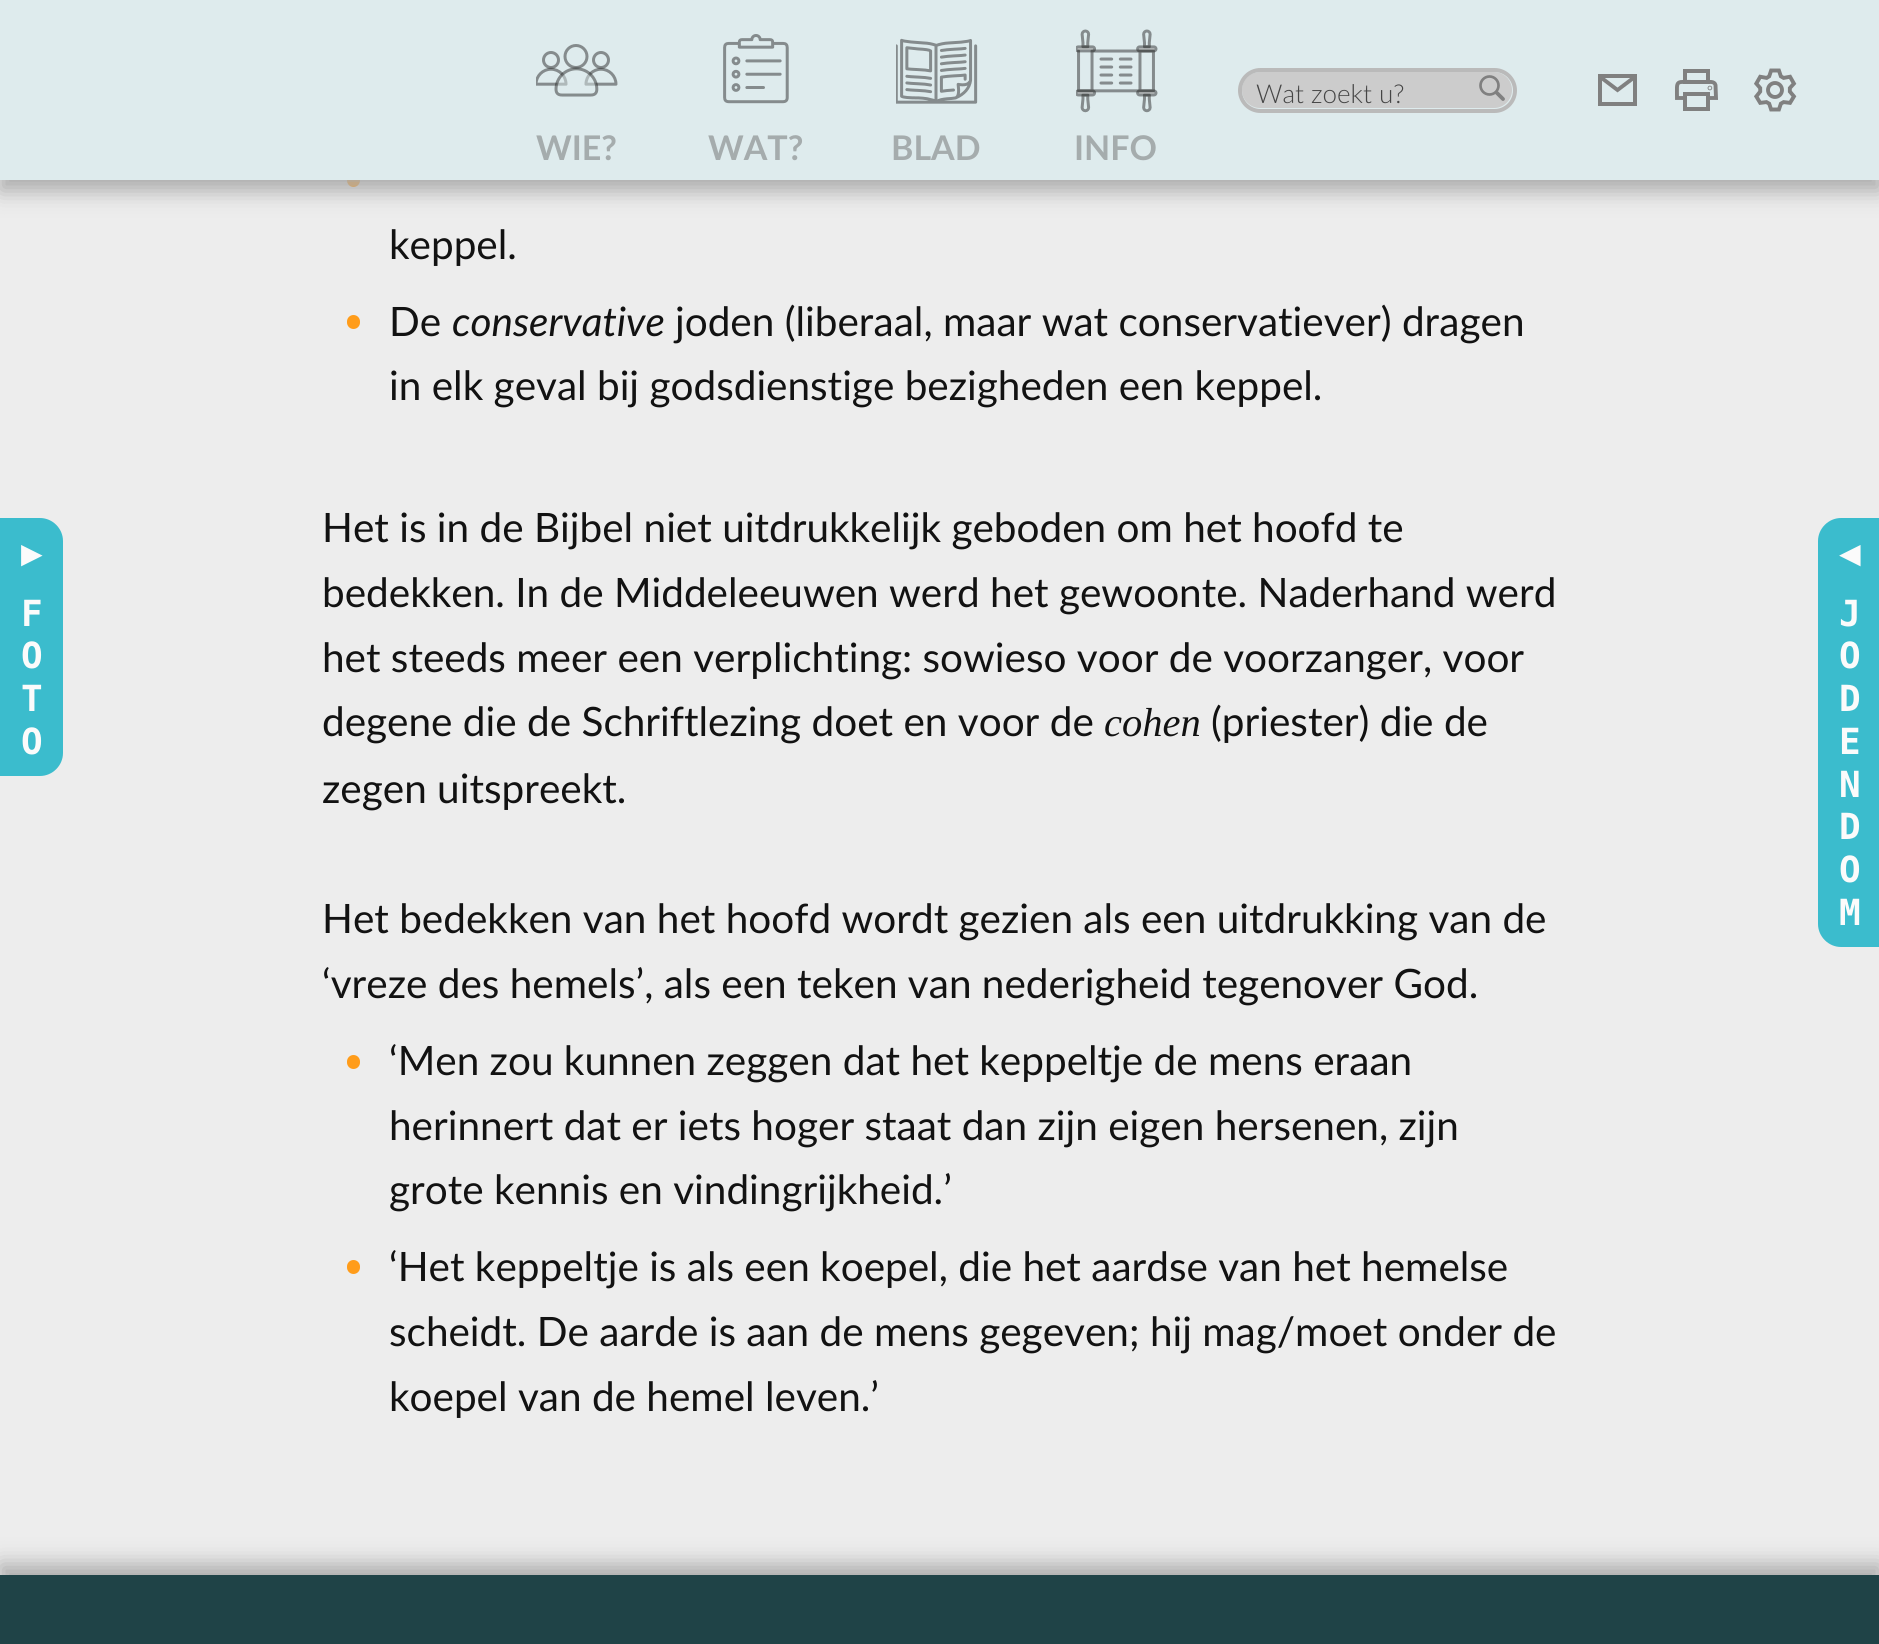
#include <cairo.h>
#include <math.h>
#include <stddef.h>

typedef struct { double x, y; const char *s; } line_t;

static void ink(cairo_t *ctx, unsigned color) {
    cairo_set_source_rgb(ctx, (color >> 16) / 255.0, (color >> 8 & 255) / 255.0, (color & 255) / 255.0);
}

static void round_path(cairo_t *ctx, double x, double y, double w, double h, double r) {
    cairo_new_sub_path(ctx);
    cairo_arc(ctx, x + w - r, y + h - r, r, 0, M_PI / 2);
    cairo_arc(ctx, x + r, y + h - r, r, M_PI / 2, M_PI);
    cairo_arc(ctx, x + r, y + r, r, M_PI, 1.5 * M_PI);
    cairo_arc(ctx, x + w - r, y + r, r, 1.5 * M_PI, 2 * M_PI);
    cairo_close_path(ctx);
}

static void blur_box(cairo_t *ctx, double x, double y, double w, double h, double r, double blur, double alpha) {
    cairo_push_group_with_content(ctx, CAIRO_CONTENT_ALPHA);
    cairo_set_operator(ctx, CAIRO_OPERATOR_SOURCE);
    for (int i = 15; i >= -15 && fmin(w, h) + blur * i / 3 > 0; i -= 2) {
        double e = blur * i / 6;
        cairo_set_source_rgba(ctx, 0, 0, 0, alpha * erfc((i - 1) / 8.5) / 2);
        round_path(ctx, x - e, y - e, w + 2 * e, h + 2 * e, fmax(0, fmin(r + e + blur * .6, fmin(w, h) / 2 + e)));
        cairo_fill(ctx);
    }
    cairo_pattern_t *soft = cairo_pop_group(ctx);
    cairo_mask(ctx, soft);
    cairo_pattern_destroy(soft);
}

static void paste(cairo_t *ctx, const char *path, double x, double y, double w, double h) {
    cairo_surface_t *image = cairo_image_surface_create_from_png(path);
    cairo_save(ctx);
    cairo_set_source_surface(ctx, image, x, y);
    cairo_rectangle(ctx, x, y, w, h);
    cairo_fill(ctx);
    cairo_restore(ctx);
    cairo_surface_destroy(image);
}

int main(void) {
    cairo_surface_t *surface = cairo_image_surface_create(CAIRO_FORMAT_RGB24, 1879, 1644);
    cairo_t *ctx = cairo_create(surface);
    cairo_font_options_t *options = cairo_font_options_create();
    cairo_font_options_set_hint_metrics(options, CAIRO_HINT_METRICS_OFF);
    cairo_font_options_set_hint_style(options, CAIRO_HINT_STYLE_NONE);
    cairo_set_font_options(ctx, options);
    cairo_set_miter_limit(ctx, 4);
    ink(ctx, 0xEDEDED);
    cairo_paint(ctx);
    ink(ctx, 0xFF9C1A);
    round_path(ctx, 347, 173, 13, 14, 6.5);
    cairo_fill(ctx);
    ink(ctx, 0xABABAB);
    blur_box(ctx, 0, 11, 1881, 180, 0, 11, 1);
    ink(ctx, 0xDEEBED);
    cairo_rectangle(ctx, 0, 0, 1879, 180);
    cairo_fill(ctx);
    ink(ctx, 0xCCCCCC);
    round_path(ctx, 1242, 72, 270, 36, 18);
    cairo_fill(ctx);
    cairo_new_path(ctx);
    cairo_move_to(ctx, 1497, 93);
    cairo_line_to(ctx, 1503, 99);
    ink(ctx, 0x808080);
    cairo_set_line_width(ctx, 3.8);
    cairo_set_line_cap(ctx, CAIRO_LINE_CAP_ROUND);
    cairo_stroke(ctx);
    cairo_arc(ctx, 1489.5, 85.5, 9, 0, 2 * M_PI);
    cairo_set_line_width(ctx, 2.7);
    cairo_set_line_cap(ctx, CAIRO_LINE_CAP_BUTT);
    cairo_stroke(ctx);
    round_path(ctx, 1240, 70, 275, 41, 20.5);
    ink(ctx, 0xBABABA);
    cairo_set_line_width(ctx, 4);
    cairo_stroke(ctx);
    cairo_select_font_face(ctx, "Lato Light", CAIRO_FONT_SLANT_NORMAL, CAIRO_FONT_WEIGHT_NORMAL);
    cairo_set_font_size(ctx, 26);
    ink(ctx, 0x454545);
    cairo_move_to(ctx, 1256, 103);
    cairo_show_text(ctx, "Wat zoekt u?");
    cairo_rectangle(ctx, 1600, 76, 35, 28);
    ink(ctx, 0x808080);
    cairo_stroke(ctx);
    cairo_new_path(ctx);
    cairo_move_to(ctx, 1601, 77.5);
    cairo_line_to(ctx, 1617.5, 90);
    cairo_line_to(ctx, 1634, 77.5);
    cairo_set_line_width(ctx, 3.9);
    cairo_set_line_cap(ctx, CAIRO_LINE_CAP_ROUND);
    cairo_stroke(ctx);
    cairo_rectangle(ctx, 1685, 71, 23, 11);
    cairo_set_line_width(ctx, 4);
    cairo_set_line_cap(ctx, CAIRO_LINE_CAP_BUTT);
    cairo_stroke(ctx);
    cairo_arc(ctx, 1709.9, 88, 0.4, 0, 2 * M_PI);
    cairo_set_line_width(ctx, 3.9);
    cairo_stroke(ctx);
    cairo_rectangle(ctx, 1685, 94, 23, 15);
    cairo_set_line_width(ctx, 4);
    cairo_stroke(ctx);
    cairo_new_path(ctx);
    cairo_move_to(ctx, 1684.5, 98);
    cairo_line_to(ctx, 1677, 98);
    cairo_curve_to(ctx, 1677, 79, 1674.5, 82, 1696.5, 82);
    cairo_line_to(ctx, 1706.5, 82);
    cairo_curve_to(ctx, 1709, 82, 1714.5, 81, 1715.5, 85);
    cairo_line_to(ctx, 1716, 98);
    cairo_line_to(ctx, 1708, 98);
    cairo_set_line_width(ctx, 3.9);
    cairo_set_line_cap(ctx, CAIRO_LINE_CAP_ROUND);
    cairo_stroke(ctx);
    paste(ctx, "media/1.png", 1754, 68, 43, 44);
    paste(ctx, "media/2.png", 536, 44, 82, 53);
    cairo_select_font_face(ctx, "Lato", CAIRO_FONT_SLANT_NORMAL, CAIRO_FONT_WEIGHT_BOLD);
    cairo_set_font_size(ctx, 34);
    ink(ctx, 0xA5ACAD);
    cairo_move_to(ctx, 536, 160);
    cairo_show_text(ctx, "WIE?");
    paste(ctx, "media/3.png", 723, 34, 66, 70);
    cairo_move_to(ctx, 708, 160);
    cairo_show_text(ctx, "WAT?");
    paste(ctx, "media/4.png", 896, 38, 82, 66);
    cairo_move_to(ctx, 891, 160);
    cairo_show_text(ctx, "BLAD");
    paste(ctx, "media/5.png", 1076, 29, 82, 84);
    cairo_move_to(ctx, 1074, 160);
    cairo_show_text(ctx, "INFO");
    ink(ctx, 0x3BBCCD);
    cairo_new_path(ctx);
    cairo_move_to(ctx, 0, 518);
    cairo_line_to(ctx, 40, 518);
    cairo_curve_to(ctx, 52.5, 518, 63, 528.5, 63, 541);
    cairo_line_to(ctx, 63, 753);
    cairo_curve_to(ctx, 63, 765.5, 52.5, 776, 40, 776);
    cairo_line_to(ctx, 0, 776);
    cairo_close_path(ctx);
    cairo_fill(ctx);
    cairo_select_font_face(ctx, "DejaVu Sans Mono", CAIRO_FONT_SLANT_NORMAL, CAIRO_FONT_WEIGHT_BOLD);
    cairo_set_font_size(ctx, 36);
    ink(ctx, 0xFBFBFB);
    {
        static const line_t items[] = {
            {21, 565, "▶"},
            {21, 626, "F"},
            {21, 668, "O"},
            {21, 711, "T"},
            {21, 754, "O"},
        };
        for (size_t i = 0; i < sizeof items / sizeof *items; i++) {
            cairo_move_to(ctx, items[i].x, items[i].y);
            cairo_show_text(ctx, items[i].s);
        }
    }
    cairo_select_font_face(ctx, "Lato", CAIRO_FONT_SLANT_NORMAL, CAIRO_FONT_WEIGHT_NORMAL);
    cairo_set_font_size(ctx, 40.5);
    ink(ctx, 0x121212);
    cairo_move_to(ctx, 389, 259);
    cairo_show_text(ctx, "keppel.");
    ink(ctx, 0xFF9C1A);
    round_path(ctx, 347, 315, 13, 14, 6.5);
    cairo_fill(ctx);
    ink(ctx, 0x121212);
    cairo_move_to(ctx, 389, 336);
    cairo_show_text(ctx, "De");
    cairo_select_font_face(ctx, "Lato", CAIRO_FONT_SLANT_ITALIC, CAIRO_FONT_WEIGHT_NORMAL);
    cairo_move_to(ctx, 452, 336);
    cairo_show_text(ctx, "conservative");
    cairo_select_font_face(ctx, "Lato", CAIRO_FONT_SLANT_NORMAL, CAIRO_FONT_WEIGHT_NORMAL);
    {
        static const line_t items[] = {
            {675, 336, "joden (liberaal, maar wat conservatiever) dragen"},
            {389, 400, "in elk geval bij godsdienstige bezigheden een keppel."},
            {322, 542, "Het is in de Bijbel niet uitdrukkelijk geboden om het hoofd te"},
            {322, 607, "bedekken. In de Middeleeuwen werd het gewoonte. Naderhand werd"},
            {322, 672, "het steeds meer een verplichting: sowieso voor de voorzanger, voor"},
            {322, 736, "degene die de Schriftlezing doet en voor de"},
        };
        for (size_t i = 0; i < sizeof items / sizeof *items; i++) {
            cairo_move_to(ctx, items[i].x, items[i].y);
            cairo_show_text(ctx, items[i].s);
        }
    }
    cairo_select_font_face(ctx, "Liberation Serif", CAIRO_FONT_SLANT_ITALIC, CAIRO_FONT_WEIGHT_NORMAL);
    cairo_move_to(ctx, 1104, 736);
    cairo_show_text(ctx, "cohen");
    cairo_select_font_face(ctx, "Lato", CAIRO_FONT_SLANT_NORMAL, CAIRO_FONT_WEIGHT_NORMAL);
    {
        static const line_t items[] = {
            {1211, 736, "(priester) die de"},
            {322, 803, "zegen uitspreekt."},
            {322, 933, "Het bedekken van het hoofd wordt gezien als een uitdrukking van de"},
            {322, 998, "‘vreze des hemels’, als een teken van nederigheid tegenover God."},
        };
        for (size_t i = 0; i < sizeof items / sizeof *items; i++) {
            cairo_move_to(ctx, items[i].x, items[i].y);
            cairo_show_text(ctx, items[i].s);
        }
    }
    ink(ctx, 0xFF9C1A);
    round_path(ctx, 347, 1055, 13, 14, 6.5);
    cairo_fill(ctx);
    ink(ctx, 0x121212);
    {
        static const line_t items[] = {
            {389, 1075, "‘Men zou kunnen zeggen dat het keppeltje de mens eraan"},
            {389, 1140, "herinnert dat er iets hoger staat dan zijn eigen hersenen, zijn"},
            {389, 1204, "grote kennis en vindingrijkheid.’"},
        };
        for (size_t i = 0; i < sizeof items / sizeof *items; i++) {
            cairo_move_to(ctx, items[i].x, items[i].y);
            cairo_show_text(ctx, items[i].s);
        }
    }
    ink(ctx, 0xFF9C1A);
    round_path(ctx, 347, 1260, 13, 14, 6.5);
    cairo_fill(ctx);
    ink(ctx, 0x121212);
    {
        static const line_t items[] = {
            {389, 1281, "‘Het keppeltje is als een koepel, die het aardse van het hemelse"},
            {389, 1346, "scheidt. De aarde is aan de mens gegeven; hij mag/moet onder de"},
            {389, 1411, "koepel van de hemel leven.’"},
        };
        for (size_t i = 0; i < sizeof items / sizeof *items; i++) {
            cairo_move_to(ctx, items[i].x, items[i].y);
            cairo_show_text(ctx, items[i].s);
        }
    }
    ink(ctx, 0x3BBCCD);
    cairo_new_path(ctx);
    cairo_move_to(ctx, 1841, 518);
    cairo_line_to(ctx, 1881, 518);
    cairo_line_to(ctx, 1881, 947);
    cairo_line_to(ctx, 1841, 947);
    cairo_curve_to(ctx, 1828.5, 947, 1818, 936.5, 1818, 924);
    cairo_line_to(ctx, 1818, 541);
    cairo_curve_to(ctx, 1818, 528.5, 1828.5, 518, 1841, 518);
    cairo_close_path(ctx);
    cairo_fill(ctx);
    cairo_select_font_face(ctx, "DejaVu Sans Mono", CAIRO_FONT_SLANT_NORMAL, CAIRO_FONT_WEIGHT_BOLD);
    cairo_set_font_size(ctx, 36);
    ink(ctx, 0xFBFBFB);
    {
        static const line_t items[] = {
            {1839, 565, "◀"},
            {1839, 626, "J"},
            {1839, 668, "O"},
            {1839, 711, "D"},
            {1839, 754, "E"},
            {1839, 797, "N"},
            {1839, 839, "D"},
            {1839, 882, "O"},
            {1839, 925, "M"},
        };
        for (size_t i = 0; i < sizeof items / sizeof *items; i++) {
            cairo_move_to(ctx, items[i].x, items[i].y);
            cairo_show_text(ctx, items[i].s);
        }
    }
    ink(ctx, 0xABABAB);
    blur_box(ctx, 0, 1564, 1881, 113, 0, 11, 1);
    ink(ctx, 0x1F4347);
    cairo_rectangle(ctx, 0, 1575, 1879, 69);
    cairo_fill(ctx);
    cairo_surface_write_to_png(surface, "image.png");
    cairo_font_options_destroy(options);
    cairo_destroy(ctx);
    cairo_surface_destroy(surface);
    return 0;
}
